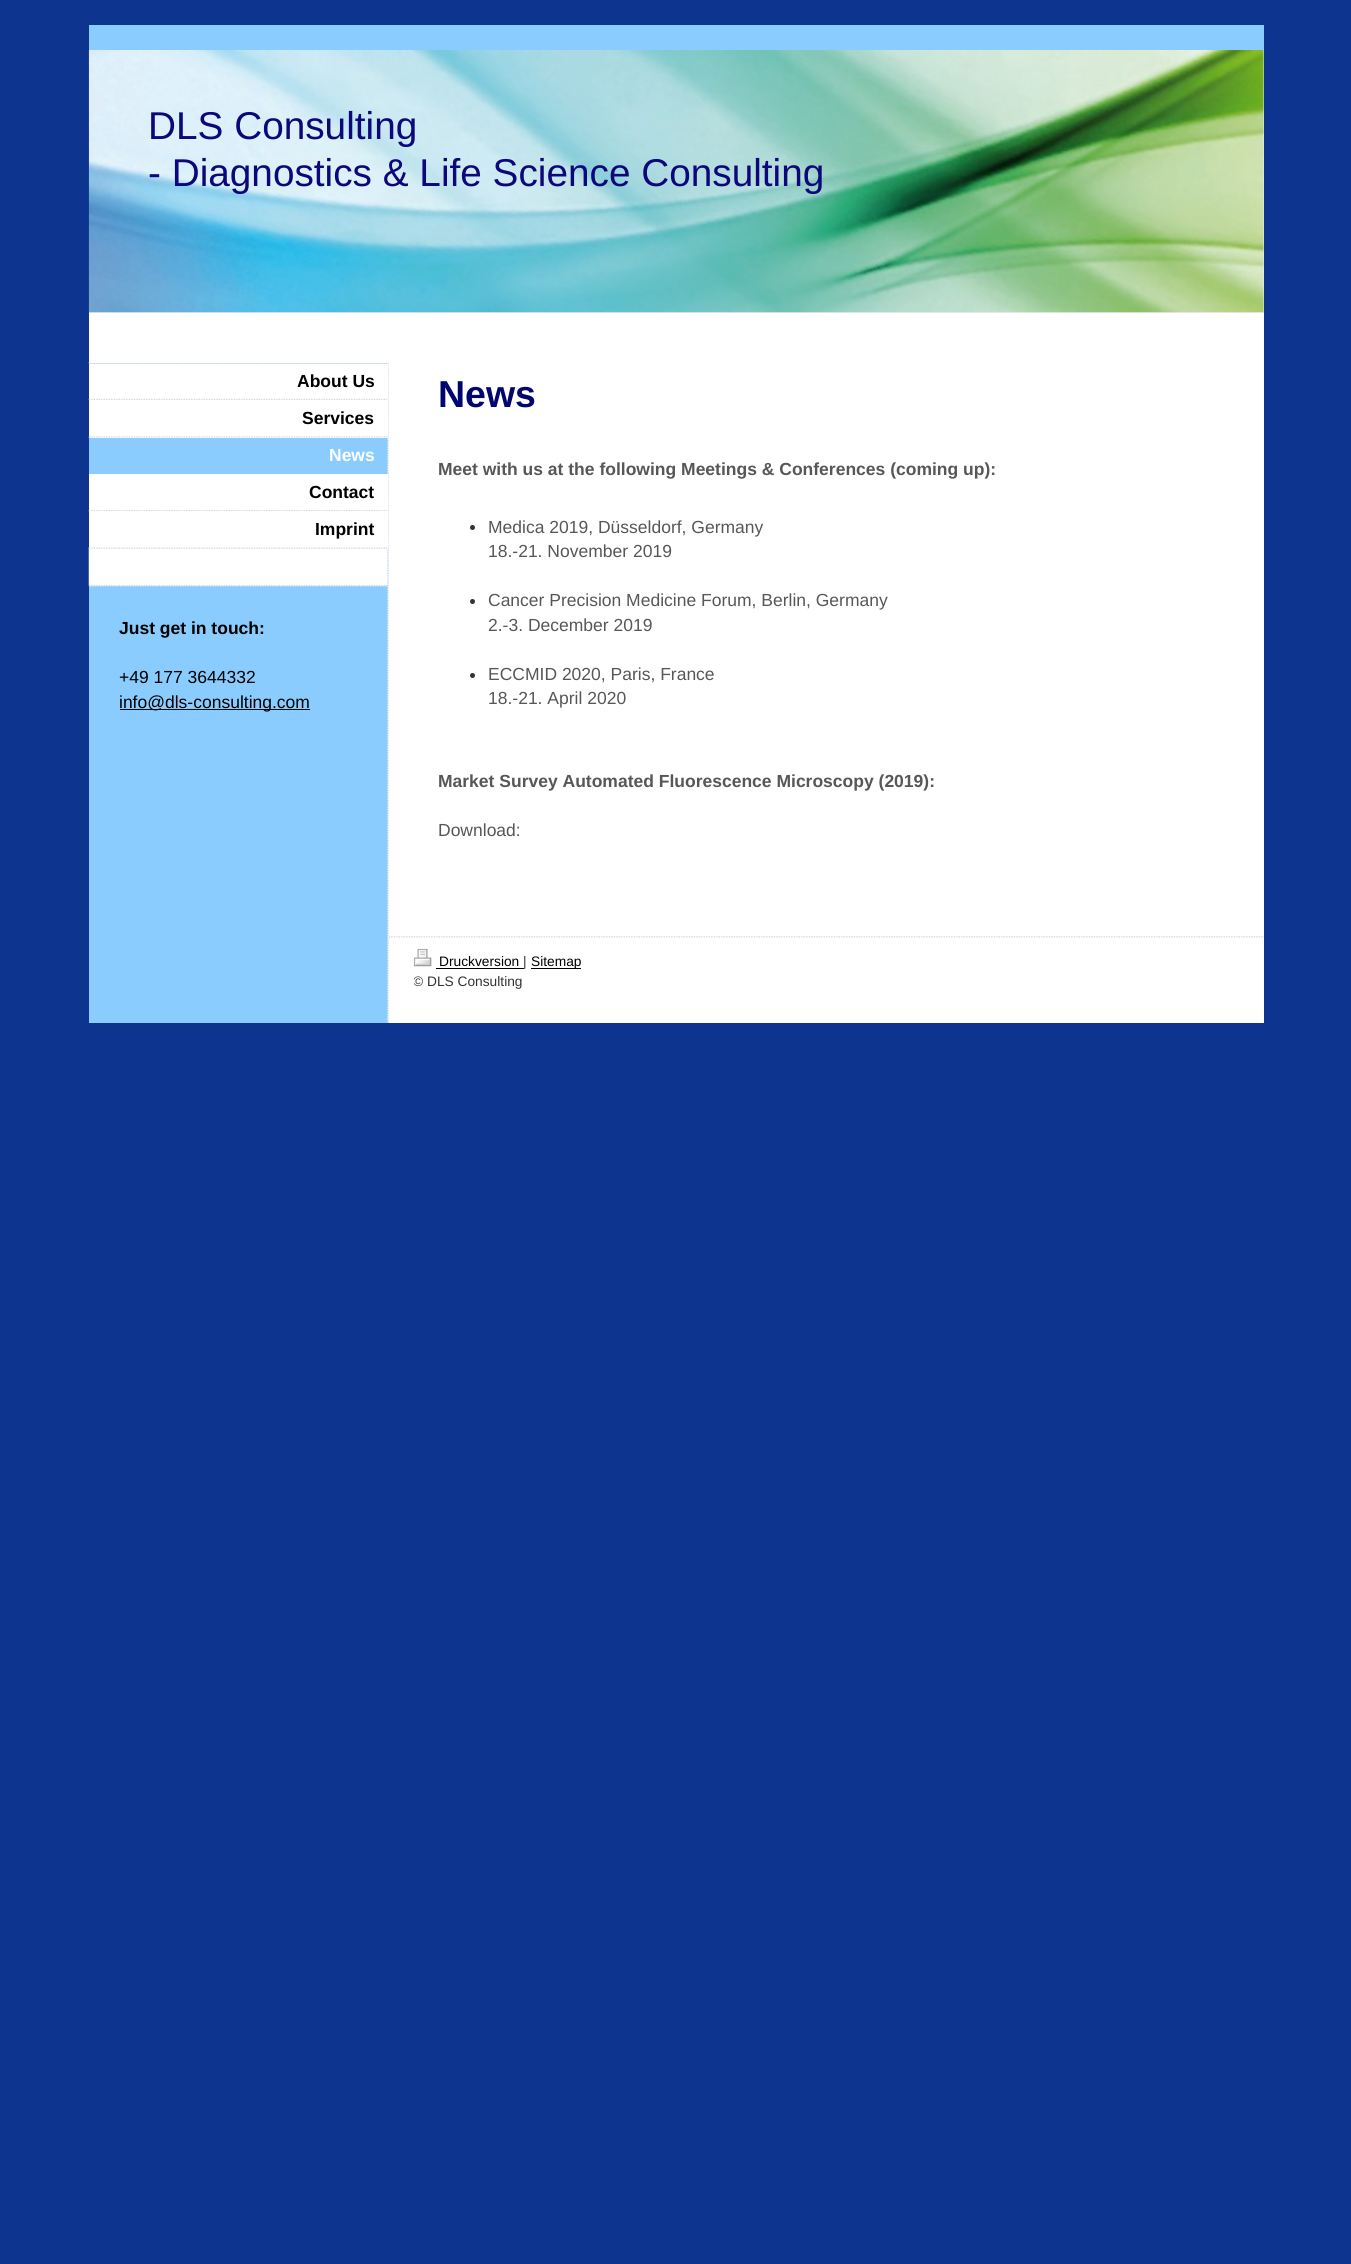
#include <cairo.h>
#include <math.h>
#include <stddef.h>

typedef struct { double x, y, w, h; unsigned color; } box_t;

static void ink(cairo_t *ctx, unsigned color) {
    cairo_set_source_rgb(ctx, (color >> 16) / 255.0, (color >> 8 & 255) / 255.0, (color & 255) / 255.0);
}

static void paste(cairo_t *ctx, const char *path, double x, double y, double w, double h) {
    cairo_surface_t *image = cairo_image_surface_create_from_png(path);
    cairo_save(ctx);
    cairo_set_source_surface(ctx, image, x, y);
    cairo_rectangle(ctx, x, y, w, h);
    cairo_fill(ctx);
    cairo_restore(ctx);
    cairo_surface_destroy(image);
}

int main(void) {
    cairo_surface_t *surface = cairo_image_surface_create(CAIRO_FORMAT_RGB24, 1351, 2264);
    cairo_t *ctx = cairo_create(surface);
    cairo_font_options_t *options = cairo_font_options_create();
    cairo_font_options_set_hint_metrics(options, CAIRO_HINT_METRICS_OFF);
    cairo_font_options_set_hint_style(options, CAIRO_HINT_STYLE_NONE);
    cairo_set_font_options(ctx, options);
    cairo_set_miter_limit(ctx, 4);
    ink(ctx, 0x0D358F);
    cairo_paint(ctx);
    ink(ctx, 0x8BCCFF);
    cairo_rectangle(ctx, 89, 363, 300, 660);
    cairo_fill(ctx);
    paste(ctx, "media/1.png", 387, 363, 2, 660);
    paste(ctx, "media/4.png", 88, 362, 300, 2);
    {
        static const box_t items[] = {
            {89, 313, 1175, 50, 0xFFFFFF},
            {89, 25, 1175, 25, 0x8BCCFF},
            {89, 50, 1175, 263, 0xEEEEEE},
        };
        for (size_t i = 0; i < sizeof items / sizeof *items; i++) {
            ink(ctx, items[i].color);
            cairo_rectangle(ctx, items[i].x, items[i].y, items[i].w, items[i].h);
            cairo_fill(ctx);
        }
    }
    paste(ctx, "media/2.png", 88, 50, 1176, 263);
    cairo_select_font_face(ctx, "Liberation Sans", CAIRO_FONT_SLANT_NORMAL, CAIRO_FONT_WEIGHT_NORMAL);
    cairo_set_font_size(ctx, 38.75);
    ink(ctx, 0x0C077A);
    cairo_move_to(ctx, 148, 139);
    cairo_show_text(ctx, "DLS Consulting");
    cairo_move_to(ctx, 148, 186);
    cairo_show_text(ctx, "- Diagnostics & Life Science Consulting");
    paste(ctx, "media/3.png", 88, 547, 300, 40);
    ink(ctx, 0xFFFFFF);
    cairo_rectangle(ctx, 89, 364, 299, 74);
    cairo_fill(ctx);
    paste(ctx, "media/5.png", 88, 398, 300, 2);
    cairo_select_font_face(ctx, "Liberation Sans", CAIRO_FONT_SLANT_NORMAL, CAIRO_FONT_WEIGHT_BOLD);
    cairo_set_font_size(ctx, 17.5);
    ink(ctx, 0x000000);
    cairo_move_to(ctx, 297, 387);
    cairo_show_text(ctx, "About Us");
    paste(ctx, "media/6.png", 88, 436, 300, 2);
    cairo_move_to(ctx, 302, 424);
    cairo_show_text(ctx, "Services");
    ink(ctx, 0xFFFFFF);
    cairo_move_to(ctx, 329, 461);
    cairo_show_text(ctx, "News");
    cairo_rectangle(ctx, 89, 474, 299, 37);
    cairo_fill(ctx);
    paste(ctx, "media/7.png", 88, 510, 300, 2);
    ink(ctx, 0x000000);
    cairo_move_to(ctx, 309, 498);
    cairo_show_text(ctx, "Contact");
    ink(ctx, 0xFFFFFF);
    cairo_rectangle(ctx, 89, 511, 299, 38);
    cairo_fill(ctx);
    paste(ctx, "media/8.png", 88, 547, 300, 2);
    ink(ctx, 0x000000);
    cairo_move_to(ctx, 315, 535);
    cairo_show_text(ctx, "Imprint");
    cairo_move_to(ctx, 119, 634);
    cairo_show_text(ctx, "Just get in touch:");
    cairo_select_font_face(ctx, "Liberation Sans", CAIRO_FONT_SLANT_NORMAL, CAIRO_FONT_WEIGHT_NORMAL);
    cairo_move_to(ctx, 119, 683);
    cairo_show_text(ctx, "+49 177 3644332");
    cairo_rectangle(ctx, 120, 709, 190, 1);
    cairo_fill(ctx);
    cairo_move_to(ctx, 119, 708);
    cairo_show_text(ctx, "info@dls-consulting.com");
    ink(ctx, 0xFFFFFF);
    cairo_rectangle(ctx, 389, 363, 875, 660);
    cairo_fill(ctx);
    cairo_select_font_face(ctx, "Liberation Sans", CAIRO_FONT_SLANT_NORMAL, CAIRO_FONT_WEIGHT_BOLD);
    cairo_set_font_size(ctx, 37.5);
    ink(ctx, 0x000570);
    cairo_move_to(ctx, 438, 407);
    cairo_show_text(ctx, "News");
    cairo_set_font_size(ctx, 17.5);
    ink(ctx, 0x575757);
    cairo_move_to(ctx, 438, 475);
    cairo_show_text(ctx, "Meet with us at the following Meetings & Conferences (coming up):");
    ink(ctx, 0x333333);
    cairo_new_path(ctx);
    cairo_arc(ctx, 472.5, 527.5, 2.5, 0, 2 * M_PI);
    cairo_fill(ctx);
    cairo_select_font_face(ctx, "Liberation Sans", CAIRO_FONT_SLANT_NORMAL, CAIRO_FONT_WEIGHT_NORMAL);
    ink(ctx, 0x575757);
    cairo_move_to(ctx, 488, 533);
    cairo_show_text(ctx, "Medica 2019, Düsseldorf, Germany");
    cairo_move_to(ctx, 488, 557);
    cairo_show_text(ctx, "18.-21. November 2019");
    ink(ctx, 0x333333);
    cairo_new_path(ctx);
    cairo_arc(ctx, 472.5, 601.5, 2.5, 0, 2 * M_PI);
    cairo_fill(ctx);
    ink(ctx, 0x575757);
    cairo_move_to(ctx, 488, 606);
    cairo_show_text(ctx, "Cancer Precision Medicine Forum, Berlin, Germany");
    cairo_move_to(ctx, 488, 631);
    cairo_show_text(ctx, "2.-3. December 2019");
    ink(ctx, 0x333333);
    cairo_new_path(ctx);
    cairo_arc(ctx, 472.5, 675.5, 2.5, 0, 2 * M_PI);
    cairo_fill(ctx);
    ink(ctx, 0x575757);
    cairo_move_to(ctx, 488, 680);
    cairo_show_text(ctx, "ECCMID 2020, Paris, France");
    cairo_move_to(ctx, 488, 704);
    cairo_show_text(ctx, "18.-21. April 2020");
    cairo_select_font_face(ctx, "Liberation Sans", CAIRO_FONT_SLANT_NORMAL, CAIRO_FONT_WEIGHT_BOLD);
    cairo_move_to(ctx, 438, 787);
    cairo_show_text(ctx, "Market Survey Automated Fluorescence Microscopy (2019):");
    cairo_select_font_face(ctx, "Liberation Sans", CAIRO_FONT_SLANT_NORMAL, CAIRO_FONT_WEIGHT_NORMAL);
    cairo_move_to(ctx, 438, 836);
    cairo_show_text(ctx, "Download:");
    paste(ctx, "media/9.png", 389, 936, 875, 2);
    paste(ctx, "media/10.png", 413, 948, 19, 19);
    cairo_set_font_size(ctx, 13.75);
    ink(ctx, 0x000000);
    cairo_move_to(ctx, 439, 966);
    cairo_show_text(ctx, "Druckversion");
    cairo_rectangle(ctx, 436, 968, 88, 1);
    cairo_fill(ctx);
    ink(ctx, 0x333333);
    cairo_move_to(ctx, 523, 966);
    cairo_show_text(ctx, "|");
    ink(ctx, 0x000000);
    cairo_rectangle(ctx, 531, 968, 50, 1);
    cairo_fill(ctx);
    cairo_move_to(ctx, 531, 966);
    cairo_show_text(ctx, "Sitemap");
    cairo_save(ctx);
    cairo_rectangle(ctx, 414, 949, 825, 61);
    cairo_clip(ctx);
    ink(ctx, 0x333333);
    cairo_move_to(ctx, 413, 986);
    cairo_show_text(ctx, "© DLS Consulting");
    cairo_restore(ctx);
    cairo_surface_write_to_png(surface, "image.png");
    cairo_font_options_destroy(options);
    cairo_destroy(ctx);
    cairo_surface_destroy(surface);
    return 0;
}
